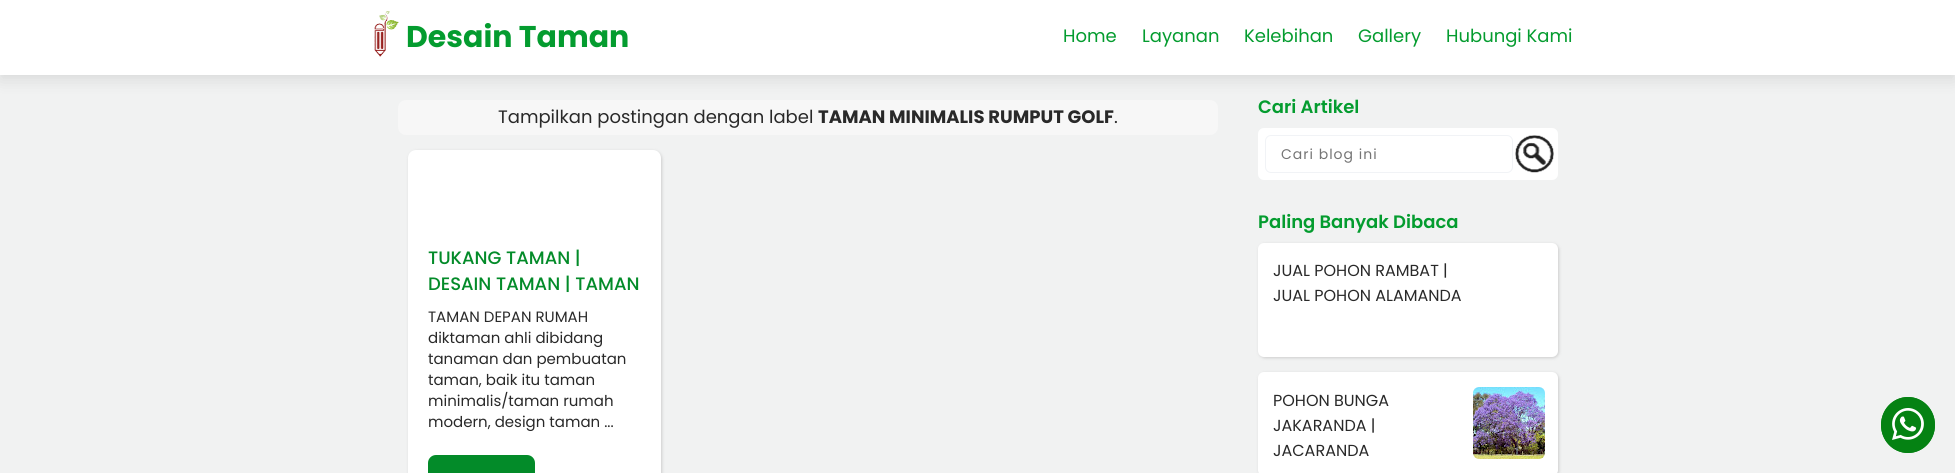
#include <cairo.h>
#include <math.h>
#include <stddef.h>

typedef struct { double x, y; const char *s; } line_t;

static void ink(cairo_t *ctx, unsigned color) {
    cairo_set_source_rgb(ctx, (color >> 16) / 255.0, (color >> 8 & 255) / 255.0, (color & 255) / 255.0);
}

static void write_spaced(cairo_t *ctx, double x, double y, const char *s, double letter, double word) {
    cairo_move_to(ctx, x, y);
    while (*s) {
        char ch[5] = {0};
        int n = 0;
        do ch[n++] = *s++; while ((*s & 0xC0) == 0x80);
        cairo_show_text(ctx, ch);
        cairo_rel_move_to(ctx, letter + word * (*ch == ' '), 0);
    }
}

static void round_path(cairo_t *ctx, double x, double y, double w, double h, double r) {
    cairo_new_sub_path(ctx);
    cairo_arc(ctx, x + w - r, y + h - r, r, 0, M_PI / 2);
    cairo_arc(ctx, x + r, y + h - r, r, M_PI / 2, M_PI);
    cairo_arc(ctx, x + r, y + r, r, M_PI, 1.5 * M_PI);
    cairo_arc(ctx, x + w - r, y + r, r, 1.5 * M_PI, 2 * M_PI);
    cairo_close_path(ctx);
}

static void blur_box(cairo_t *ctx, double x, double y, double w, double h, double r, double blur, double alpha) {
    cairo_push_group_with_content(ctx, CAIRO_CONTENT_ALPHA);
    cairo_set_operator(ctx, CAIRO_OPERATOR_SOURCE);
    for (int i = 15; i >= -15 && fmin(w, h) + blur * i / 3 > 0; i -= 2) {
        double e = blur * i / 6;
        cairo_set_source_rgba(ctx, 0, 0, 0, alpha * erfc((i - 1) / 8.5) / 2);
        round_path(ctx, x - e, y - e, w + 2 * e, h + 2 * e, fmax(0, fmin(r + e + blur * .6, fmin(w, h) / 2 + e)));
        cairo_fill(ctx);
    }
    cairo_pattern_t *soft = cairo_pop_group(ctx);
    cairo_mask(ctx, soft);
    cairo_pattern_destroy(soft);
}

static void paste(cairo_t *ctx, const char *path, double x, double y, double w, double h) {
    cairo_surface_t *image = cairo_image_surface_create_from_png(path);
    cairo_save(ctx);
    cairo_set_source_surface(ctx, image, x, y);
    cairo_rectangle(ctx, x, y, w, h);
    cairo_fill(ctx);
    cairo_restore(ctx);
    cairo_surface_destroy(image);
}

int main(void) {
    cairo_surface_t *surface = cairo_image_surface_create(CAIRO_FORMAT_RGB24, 1955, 473);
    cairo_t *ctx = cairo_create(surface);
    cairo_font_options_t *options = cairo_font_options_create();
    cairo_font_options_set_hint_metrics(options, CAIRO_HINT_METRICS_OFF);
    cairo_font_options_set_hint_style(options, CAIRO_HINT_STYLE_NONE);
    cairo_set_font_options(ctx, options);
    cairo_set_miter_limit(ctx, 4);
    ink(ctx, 0xF1F2F2);
    cairo_paint(ctx);
    ink(ctx, 0xF7F7F7);
    round_path(ctx, 398, 100, 820, 35, 8);
    cairo_fill(ctx);
    ink(ctx, 0x000000);
    blur_box(ctx, 0, 5, 1955, 75, 0, 7.5, 0.1);
    ink(ctx, 0xFFFFFF);
    cairo_rectangle(ctx, 0, 0, 1955, 75);
    cairo_fill(ctx);
    paste(ctx, "media/1.png", 374, 11, 25, 46);
    cairo_select_font_face(ctx, "Poppins", CAIRO_FONT_SLANT_NORMAL, CAIRO_FONT_WEIGHT_BOLD);
    cairo_set_font_size(ctx, 30);
    ink(ctx, 0x049C2F);
    cairo_move_to(ctx, 406, 47);
    cairo_show_text(ctx, "Desain Taman");
    cairo_select_font_face(ctx, "Poppins", CAIRO_FONT_SLANT_NORMAL, CAIRO_FONT_WEIGHT_NORMAL);
    cairo_set_font_size(ctx, 18);
    {
        static const line_t items[] = {
            {1063, 42, "Home"},
            {1142, 42, "Layanan"},
            {1244, 42, "Kelebihan"},
            {1358, 42, "Gallery"},
            {1446, 42, "Hubungi Kami"},
        };
        for (size_t i = 0; i < sizeof items / sizeof *items; i++) {
            cairo_move_to(ctx, items[i].x, items[i].y);
            cairo_show_text(ctx, items[i].s);
        }
    }
    ink(ctx, 0x292929);
    cairo_move_to(ctx, 498, 123);
    cairo_show_text(ctx, "Tampilkan postingan dengan label");
    cairo_select_font_face(ctx, "Poppins", CAIRO_FONT_SLANT_NORMAL, CAIRO_FONT_WEIGHT_BOLD);
    cairo_move_to(ctx, 818, 123);
    cairo_show_text(ctx, "TAMAN MINIMALIS RUMPUT GOLF");
    cairo_select_font_face(ctx, "Poppins", CAIRO_FONT_SLANT_NORMAL, CAIRO_FONT_WEIGHT_NORMAL);
    cairo_move_to(ctx, 1114, 123);
    cairo_show_text(ctx, ".");
    ink(ctx, 0xCDCDCD);
    blur_box(ctx, 409, 151, 253, 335, 8, 1.5, 1);
    ink(ctx, 0xFFFFFF);
    round_path(ctx, 408, 150, 253, 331, 8);
    cairo_fill(ctx);
    cairo_select_font_face(ctx, "Poppins Medium", CAIRO_FONT_SLANT_NORMAL, CAIRO_FONT_WEIGHT_NORMAL);
    ink(ctx, 0x038B29);
    cairo_move_to(ctx, 428, 264);
    cairo_show_text(ctx, "TUKANG TAMAN |");
    cairo_move_to(ctx, 428, 290);
    cairo_show_text(ctx, "DESAIN TAMAN | TAMAN");
    cairo_select_font_face(ctx, "Poppins", CAIRO_FONT_SLANT_NORMAL, CAIRO_FONT_WEIGHT_NORMAL);
    cairo_set_font_size(ctx, 15);
    ink(ctx, 0x292929);
    {
        static const line_t items[] = {
            {428, 322, "TAMAN DEPAN RUMAH"},
            {428, 343, "diktaman ahli dibidang"},
            {428, 364, "tanaman dan pembuatan"},
            {428, 385, "taman, baik itu taman"},
            {428, 406, "minimalis/taman rumah"},
            {428, 427, "modern, design taman ..."},
        };
        for (size_t i = 0; i < sizeof items / sizeof *items; i++) {
            cairo_move_to(ctx, items[i].x, items[i].y);
            cairo_show_text(ctx, items[i].s);
        }
    }
    ink(ctx, 0x038B29);
    round_path(ctx, 428, 455, 107, 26, 8);
    cairo_fill(ctx);
    cairo_select_font_face(ctx, "Poppins SemiBold", CAIRO_FONT_SLANT_NORMAL, CAIRO_FONT_WEIGHT_NORMAL);
    cairo_set_font_size(ctx, 18);
    ink(ctx, 0x049C2F);
    cairo_move_to(ctx, 1258, 113);
    cairo_show_text(ctx, "Cari Artikel");
    ink(ctx, 0xFFFFFF);
    round_path(ctx, 1258, 128, 300, 52, 6);
    cairo_fill(ctx);
    round_path(ctx, 1265.5, 135.5, 247, 37, 5.5);
    ink(ctx, 0xF1F3F6);
    cairo_set_line_width(ctx, 1);
    cairo_stroke(ctx);
    cairo_select_font_face(ctx, "Poppins", CAIRO_FONT_SLANT_NORMAL, CAIRO_FONT_WEIGHT_NORMAL);
    cairo_set_font_size(ctx, 14);
    ink(ctx, 0x757575);
    write_spaced(ctx, 1281, 159, "Cari blog ini", 1, 0);
    paste(ctx, "media/2.png", 1515, 135, 39, 38);
    cairo_select_font_face(ctx, "Poppins SemiBold", CAIRO_FONT_SLANT_NORMAL, CAIRO_FONT_WEIGHT_NORMAL);
    cairo_set_font_size(ctx, 18);
    ink(ctx, 0x049C2F);
    cairo_move_to(ctx, 1258, 228);
    cairo_show_text(ctx, "Paling Banyak Dibaca");
    ink(ctx, 0xCDCDCD);
    blur_box(ctx, 1259, 244, 300, 114, 6, 1.5, 1);
    ink(ctx, 0xFFFFFF);
    round_path(ctx, 1258, 243, 300, 114, 6);
    cairo_fill(ctx);
    cairo_select_font_face(ctx, "Poppins", CAIRO_FONT_SLANT_NORMAL, CAIRO_FONT_WEIGHT_NORMAL);
    cairo_set_font_size(ctx, 16);
    ink(ctx, 0x292929);
    cairo_move_to(ctx, 1273, 276);
    cairo_show_text(ctx, "JUAL POHON RAMBAT |");
    cairo_move_to(ctx, 1273, 301);
    cairo_show_text(ctx, "JUAL POHON ALAMANDA");
    ink(ctx, 0xCDCDCD);
    blur_box(ctx, 1259, 373, 300, 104, 6, 1.5, 1);
    ink(ctx, 0xFFFFFF);
    round_path(ctx, 1258, 372, 300, 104, 6);
    cairo_fill(ctx);
    ink(ctx, 0x292929);
    {
        static const line_t items[] = {
            {1273, 406, "POHON BUNGA"},
            {1273, 431, "JAKARANDA |"},
            {1273, 456, "JACARANDA"},
        };
        for (size_t i = 0; i < sizeof items / sizeof *items; i++) {
            cairo_move_to(ctx, items[i].x, items[i].y);
            cairo_show_text(ctx, items[i].s);
        }
    }
    paste(ctx, "media/3.png", 1473, 387, 72, 72);
    ink(ctx, 0x058213);
    cairo_new_path(ctx);
    cairo_move_to(ctx, 1908, 397);
    cairo_curve_to(ctx, 1923, 397, 1935, 409.5, 1935, 425);
    cairo_curve_to(ctx, 1935, 440.5, 1923, 453, 1908, 453);
    cairo_curve_to(ctx, 1893, 453, 1881, 440.5, 1881, 425);
    cairo_curve_to(ctx, 1881, 409.5, 1893, 397, 1908, 397);
    cairo_close_path(ctx);
    cairo_fill(ctx);
    cairo_new_path(ctx);
    cairo_move_to(ctx, 1908, 398);
    cairo_curve_to(ctx, 1922.5, 398, 1934, 410, 1934, 425);
    cairo_curve_to(ctx, 1934, 440, 1922.5, 452, 1908, 452);
    cairo_curve_to(ctx, 1893.5, 452, 1882, 440, 1882, 425);
    cairo_curve_to(ctx, 1882, 410, 1893.5, 398, 1908, 398);
    cairo_close_path(ctx);
    cairo_set_line_width(ctx, 2);
    cairo_stroke(ctx);
    paste(ctx, "media/4.png", 1892, 408, 32, 32);
    cairo_surface_write_to_png(surface, "image.png");
    cairo_font_options_destroy(options);
    cairo_destroy(ctx);
    cairo_surface_destroy(surface);
    return 0;
}
